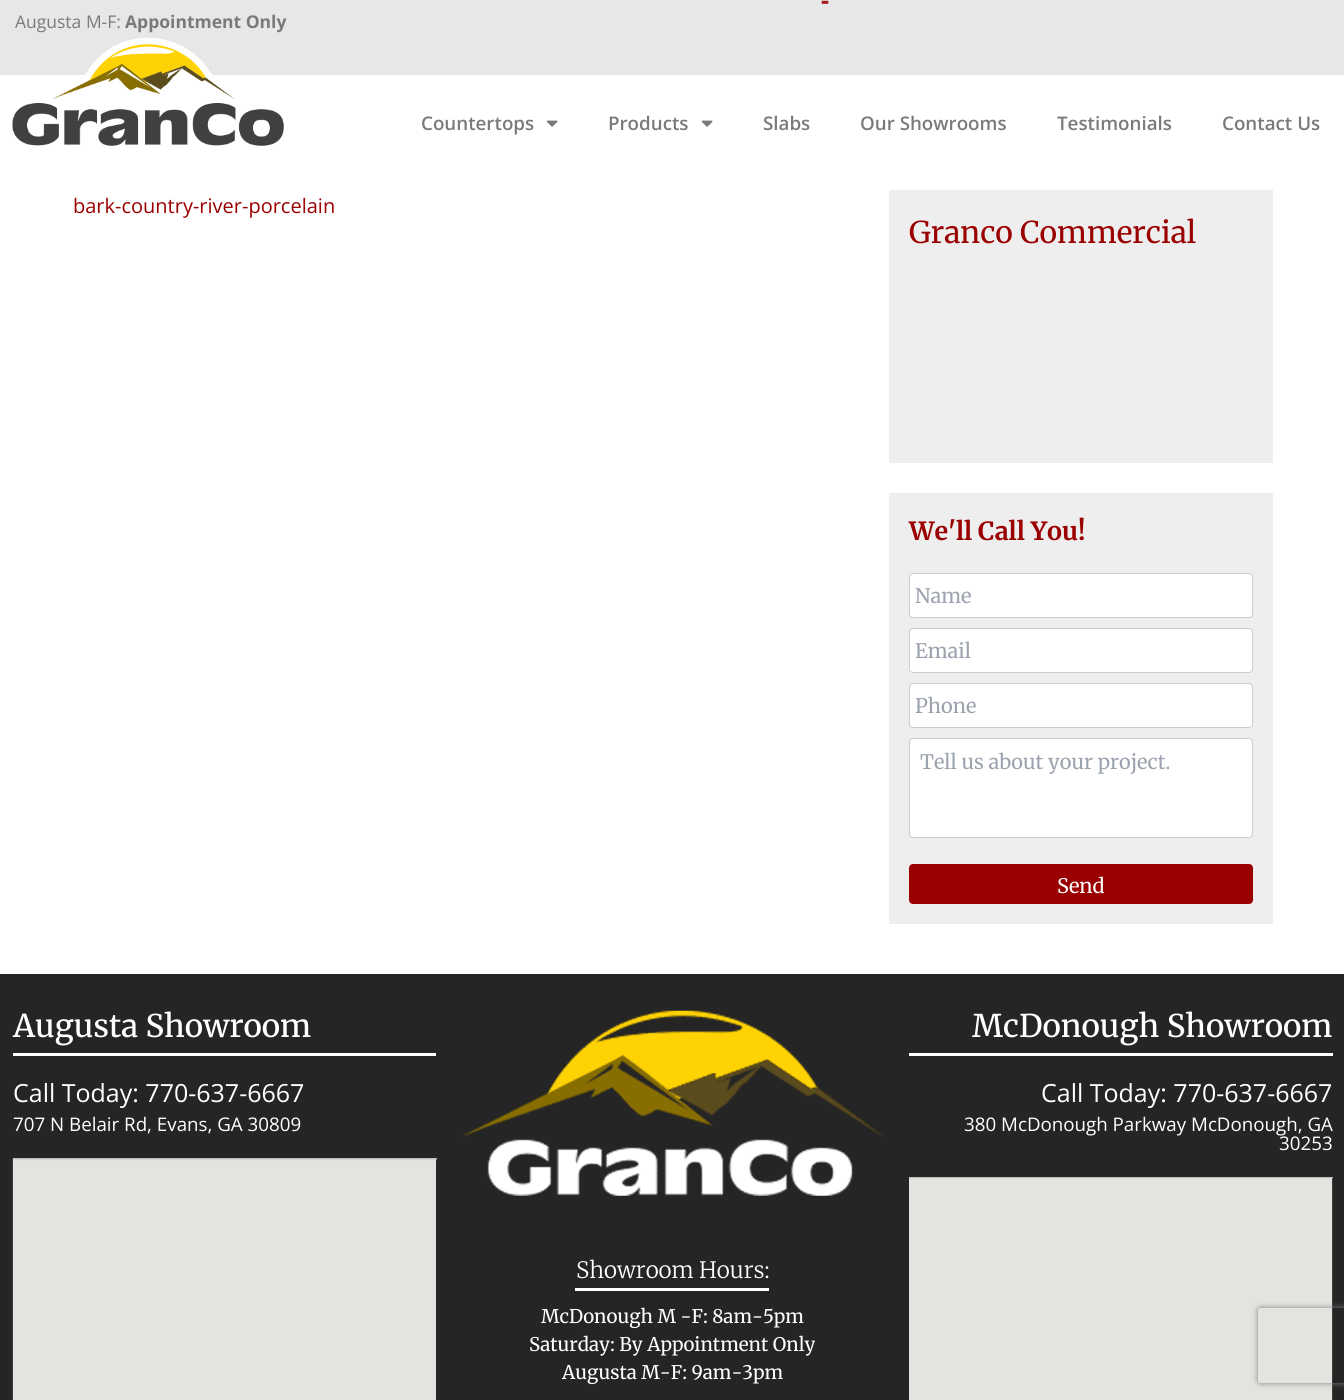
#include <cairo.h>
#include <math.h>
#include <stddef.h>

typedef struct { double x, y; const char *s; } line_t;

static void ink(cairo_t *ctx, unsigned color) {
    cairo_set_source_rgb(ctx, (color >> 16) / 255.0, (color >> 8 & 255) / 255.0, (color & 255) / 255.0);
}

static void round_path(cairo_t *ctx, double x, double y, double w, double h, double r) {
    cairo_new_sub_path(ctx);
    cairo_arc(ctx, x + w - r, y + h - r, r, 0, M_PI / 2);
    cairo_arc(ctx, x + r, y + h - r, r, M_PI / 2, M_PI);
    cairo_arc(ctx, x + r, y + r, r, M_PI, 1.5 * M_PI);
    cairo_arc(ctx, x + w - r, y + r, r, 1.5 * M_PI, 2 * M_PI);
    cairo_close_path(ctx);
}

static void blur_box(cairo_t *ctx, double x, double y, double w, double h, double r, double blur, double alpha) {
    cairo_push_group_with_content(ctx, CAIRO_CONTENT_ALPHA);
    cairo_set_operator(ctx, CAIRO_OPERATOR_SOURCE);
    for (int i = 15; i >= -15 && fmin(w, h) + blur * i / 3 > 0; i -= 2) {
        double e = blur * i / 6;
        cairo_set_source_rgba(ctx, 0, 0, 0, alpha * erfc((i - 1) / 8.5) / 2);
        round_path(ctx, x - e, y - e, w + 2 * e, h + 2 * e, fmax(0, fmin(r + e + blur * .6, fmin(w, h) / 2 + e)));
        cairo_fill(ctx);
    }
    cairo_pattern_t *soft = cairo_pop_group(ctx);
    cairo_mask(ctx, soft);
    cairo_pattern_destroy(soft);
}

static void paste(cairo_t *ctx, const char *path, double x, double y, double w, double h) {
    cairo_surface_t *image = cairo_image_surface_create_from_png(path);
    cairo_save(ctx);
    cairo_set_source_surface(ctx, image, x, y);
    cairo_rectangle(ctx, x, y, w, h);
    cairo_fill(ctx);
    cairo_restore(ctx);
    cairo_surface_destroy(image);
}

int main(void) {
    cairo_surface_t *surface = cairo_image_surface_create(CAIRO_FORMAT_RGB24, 1344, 1400);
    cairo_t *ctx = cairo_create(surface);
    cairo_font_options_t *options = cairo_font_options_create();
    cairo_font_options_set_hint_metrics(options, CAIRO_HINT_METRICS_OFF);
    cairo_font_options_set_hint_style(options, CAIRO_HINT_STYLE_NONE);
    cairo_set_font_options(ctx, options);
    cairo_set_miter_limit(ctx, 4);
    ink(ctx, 0xFFFFFF);
    cairo_paint(ctx);
    ink(ctx, 0xE7E7E7);
    cairo_rectangle(ctx, 0, 0, 1344, 75);
    cairo_fill(ctx);
    cairo_select_font_face(ctx, "Open Sans", CAIRO_FONT_SLANT_NORMAL, CAIRO_FONT_WEIGHT_BOLD);
    cairo_set_font_size(ctx, 25);
    ink(ctx, 0xA31B1B);
    cairo_move_to(ctx, 821, 9);
    cairo_show_text(ctx, "-");
    cairo_select_font_face(ctx, "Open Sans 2", CAIRO_FONT_SLANT_NORMAL, CAIRO_FONT_WEIGHT_NORMAL);
    cairo_set_font_size(ctx, 17.5);
    ink(ctx, 0x7A7A7A);
    cairo_move_to(ctx, 15, 28);
    cairo_show_text(ctx, "Augusta M-F:");
    cairo_select_font_face(ctx, "Open Sans", CAIRO_FONT_SLANT_NORMAL, CAIRO_FONT_WEIGHT_BOLD);
    cairo_move_to(ctx, 125, 28);
    cairo_show_text(ctx, "Appointment Only");
    paste(ctx, "media/1.png", 12, 37, 272, 109);
    cairo_select_font_face(ctx, "Open Sans SemiBold", CAIRO_FONT_SLANT_NORMAL, CAIRO_FONT_WEIGHT_NORMAL);
    cairo_set_font_size(ctx, 18.75);
    cairo_move_to(ctx, 421, 130);
    cairo_show_text(ctx, "Countertops");
    paste(ctx, "media/2.png", 546, 120, 12, 7);
    cairo_move_to(ctx, 608, 130);
    cairo_show_text(ctx, "Products");
    paste(ctx, "media/2.png", 701, 120, 12, 7);
    {
        static const line_t items[] = {
            {763, 130, "Slabs"},
            {860, 130, "Our Showrooms"},
            {1057, 130, "Testimonials"},
            {1222, 130, "Contact Us"},
        };
        for (size_t i = 0; i < sizeof items / sizeof *items; i++) {
            cairo_move_to(ctx, items[i].x, items[i].y);
            cairo_show_text(ctx, items[i].s);
        }
    }
    cairo_select_font_face(ctx, "Open Sans", CAIRO_FONT_SLANT_NORMAL, CAIRO_FONT_WEIGHT_NORMAL);
    cairo_set_font_size(ctx, 20);
    ink(ctx, 0x9B0000);
    cairo_move_to(ctx, 73, 213);
    cairo_show_text(ctx, "bark-country-river-porcelain");
    ink(ctx, 0xEEEEEE);
    cairo_rectangle(ctx, 889, 190, 384, 273);
    cairo_fill(ctx);
    cairo_select_font_face(ctx, "Merriweather", CAIRO_FONT_SLANT_NORMAL, CAIRO_FONT_WEIGHT_NORMAL);
    cairo_set_font_size(ctx, 30);
    ink(ctx, 0x9B0000);
    cairo_move_to(ctx, 909, 243);
    cairo_show_text(ctx, "Granco Commercial");
    ink(ctx, 0xEEEEEE);
    cairo_rectangle(ctx, 889, 493, 384, 431);
    cairo_fill(ctx);
    cairo_select_font_face(ctx, "Merriweather", CAIRO_FONT_SLANT_NORMAL, CAIRO_FONT_WEIGHT_BOLD);
    cairo_set_font_size(ctx, 25);
    ink(ctx, 0x9B0000);
    cairo_move_to(ctx, 909, 540);
    cairo_show_text(ctx, "We'll Call You!");
    ink(ctx, 0xFFFFFF);
    round_path(ctx, 909.5, 573.5, 343, 44, 3.5);
    cairo_fill_preserve(ctx);
    ink(ctx, 0xCCCCCC);
    cairo_set_line_width(ctx, 1);
    cairo_stroke(ctx);
    cairo_select_font_face(ctx, "Merriweather", CAIRO_FONT_SLANT_NORMAL, CAIRO_FONT_WEIGHT_NORMAL);
    cairo_set_font_size(ctx, 20);
    ink(ctx, 0x9CA3AF);
    cairo_move_to(ctx, 915, 603);
    cairo_show_text(ctx, "Name");
    ink(ctx, 0xFFFFFF);
    round_path(ctx, 909.5, 628.5, 343, 44, 3.5);
    cairo_fill_preserve(ctx);
    ink(ctx, 0xCCCCCC);
    cairo_stroke(ctx);
    ink(ctx, 0x9CA3AF);
    cairo_move_to(ctx, 915, 658);
    cairo_show_text(ctx, "Email");
    ink(ctx, 0xFFFFFF);
    round_path(ctx, 909.5, 683.5, 343, 44, 3.5);
    cairo_fill_preserve(ctx);
    ink(ctx, 0xCCCCCC);
    cairo_stroke(ctx);
    ink(ctx, 0x9CA3AF);
    cairo_move_to(ctx, 915, 713);
    cairo_show_text(ctx, "Phone");
    ink(ctx, 0xFFFFFF);
    round_path(ctx, 909.5, 738.5, 343, 99, 3.5);
    cairo_fill_preserve(ctx);
    ink(ctx, 0xCCCCCC);
    cairo_stroke(ctx);
    ink(ctx, 0x9CA3AF);
    cairo_move_to(ctx, 920, 769);
    cairo_show_text(ctx, "Tell us about your project.");
    ink(ctx, 0x9B0000);
    round_path(ctx, 909, 864, 344, 40, 4);
    cairo_fill(ctx);
    ink(ctx, 0xFFFFFF);
    cairo_move_to(ctx, 1057, 893);
    cairo_show_text(ctx, "Send");
    ink(ctx, 0x252525);
    cairo_rectangle(ctx, 0, 974, 1344, 426);
    cairo_fill(ctx);
    ink(ctx, 0xFFFFFF);
    cairo_rectangle(ctx, 13, 1053, 423, 3);
    cairo_fill(ctx);
    cairo_select_font_face(ctx, "Merriweather Medium", CAIRO_FONT_SLANT_NORMAL, CAIRO_FONT_WEIGHT_NORMAL);
    cairo_set_font_size(ctx, 31.25);
    cairo_move_to(ctx, 13, 1037);
    cairo_show_text(ctx, "Augusta Showroom");
    cairo_select_font_face(ctx, "Open Sans 2", CAIRO_FONT_SLANT_NORMAL, CAIRO_FONT_WEIGHT_NORMAL);
    cairo_set_font_size(ctx, 25);
    cairo_move_to(ctx, 13, 1102);
    cairo_show_text(ctx, "Call Today: 770-637-6667");
    cairo_set_font_size(ctx, 18.75);
    cairo_move_to(ctx, 13, 1131);
    cairo_show_text(ctx, "707 N Belair Rd, Evans, GA 30809");
    paste(ctx, "media/3.png", 12, 1158, 425, 242);
    cairo_rectangle(ctx, 909, 1053, 424, 3);
    cairo_fill(ctx);
    cairo_select_font_face(ctx, "Merriweather Medium", CAIRO_FONT_SLANT_NORMAL, CAIRO_FONT_WEIGHT_NORMAL);
    cairo_set_font_size(ctx, 31.25);
    cairo_move_to(ctx, 972, 1037);
    cairo_show_text(ctx, "McDonough Showroom");
    cairo_select_font_face(ctx, "Open Sans 2", CAIRO_FONT_SLANT_NORMAL, CAIRO_FONT_WEIGHT_NORMAL);
    cairo_set_font_size(ctx, 25);
    cairo_move_to(ctx, 1041, 1102);
    cairo_show_text(ctx, "Call Today: 770-637-6667");
    cairo_set_font_size(ctx, 18.75);
    cairo_move_to(ctx, 964, 1131);
    cairo_show_text(ctx, "380 McDonough Parkway McDonough, GA");
    cairo_move_to(ctx, 1279, 1150);
    cairo_show_text(ctx, "30253");
    paste(ctx, "media/4.png", 909, 1177, 424, 223);
    paste(ctx, "media/5.png", 461, 1010, 423, 186);
    cairo_rectangle(ctx, 575, 1288, 194, 3);
    cairo_fill(ctx);
    cairo_select_font_face(ctx, "Merriweather Light", CAIRO_FONT_SLANT_NORMAL, CAIRO_FONT_WEIGHT_NORMAL);
    cairo_set_font_size(ctx, 22.5);
    cairo_move_to(ctx, 576, 1278);
    cairo_show_text(ctx, "Showroom Hours:");
    cairo_select_font_face(ctx, "Merriweather", CAIRO_FONT_SLANT_NORMAL, CAIRO_FONT_WEIGHT_NORMAL);
    cairo_set_font_size(ctx, 18.75);
    {
        static const line_t items[] = {
            {541, 1323, "McDonough M -F: 8am-5pm"},
            {529, 1351, "Saturday: By Appointment Only"},
            {562, 1379, "Augusta M-F: 9am-3pm"},
        };
        for (size_t i = 0; i < sizeof items / sizeof *items; i++) {
            cairo_move_to(ctx, items[i].x, items[i].y);
            cairo_show_text(ctx, items[i].s);
        }
    }
    cairo_save(ctx);
    cairo_set_fill_rule(ctx, CAIRO_FILL_RULE_EVEN_ODD);
    cairo_new_path(ctx);
    cairo_move_to(ctx, 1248, 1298);
    cairo_line_to(ctx, 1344, 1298);
    cairo_line_to(ctx, 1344, 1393);
    cairo_line_to(ctx, 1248, 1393);
    cairo_close_path(ctx);
    cairo_move_to(ctx, 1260.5, 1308);
    cairo_line_to(ctx, 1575.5, 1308);
    cairo_curve_to(ctx, 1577, 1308, 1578, 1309, 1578, 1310.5);
    cairo_line_to(ctx, 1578, 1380.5);
    cairo_curve_to(ctx, 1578, 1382, 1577, 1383, 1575.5, 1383);
    cairo_line_to(ctx, 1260.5, 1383);
    cairo_curve_to(ctx, 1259, 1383, 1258, 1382, 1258, 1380.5);
    cairo_line_to(ctx, 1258, 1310.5);
    cairo_curve_to(ctx, 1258, 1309, 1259, 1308, 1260.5, 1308);
    cairo_close_path(ctx);
    cairo_clip(ctx);
    ink(ctx, 0x808080);
    blur_box(ctx, 1258, 1308, 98, 75, 2.5, 3, 1);
    cairo_restore(ctx);
    cairo_surface_write_to_png(surface, "image.png");
    cairo_font_options_destroy(options);
    cairo_destroy(ctx);
    cairo_surface_destroy(surface);
    return 0;
}
